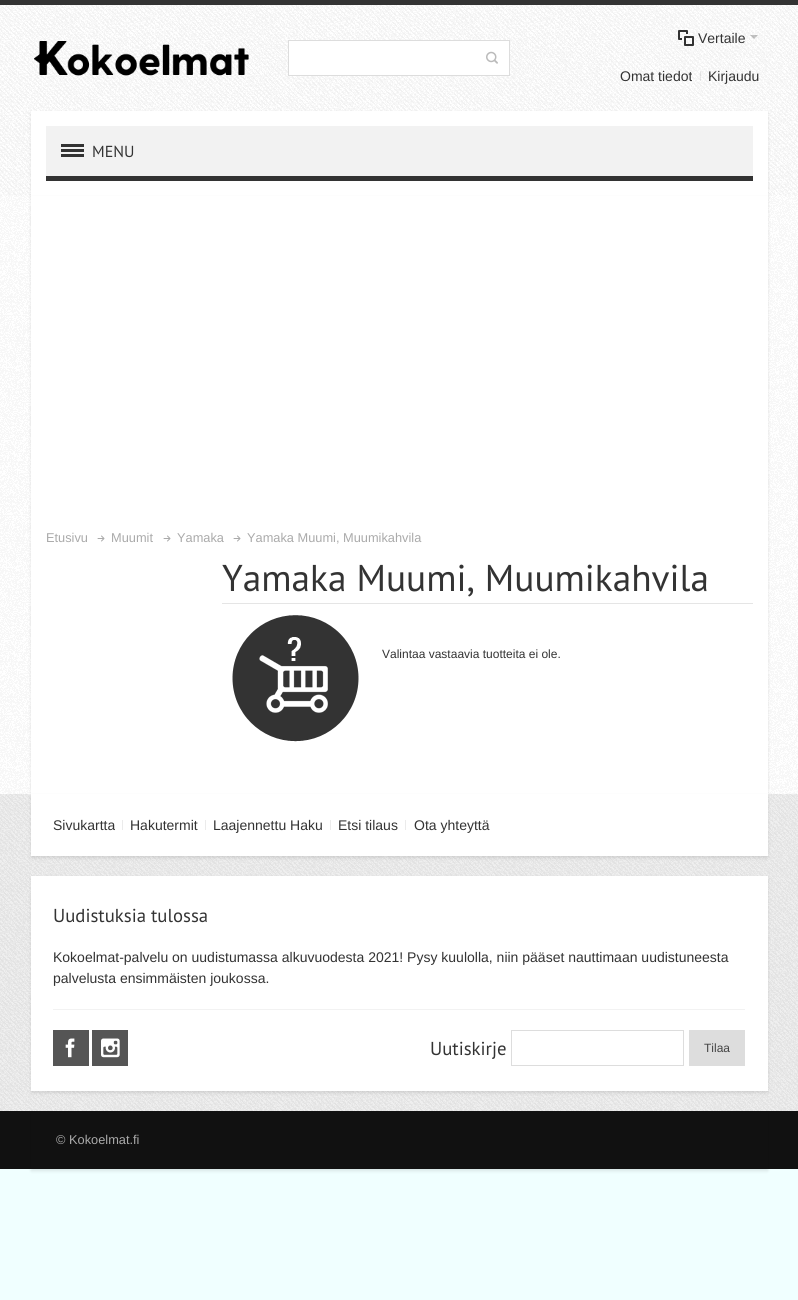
#include <cairo.h>
#include <math.h>
#include <stddef.h>

typedef struct { double x, y, w, h; unsigned color; } box_t;

static void ink(cairo_t *ctx, unsigned color) {
    cairo_set_source_rgb(ctx, (color >> 16) / 255.0, (color >> 8 & 255) / 255.0, (color & 255) / 255.0);
}

static void round_path(cairo_t *ctx, double x, double y, double w, double h, double r) {
    cairo_new_sub_path(ctx);
    cairo_arc(ctx, x + w - r, y + h - r, r, 0, M_PI / 2);
    cairo_arc(ctx, x + r, y + h - r, r, M_PI / 2, M_PI);
    cairo_arc(ctx, x + r, y + r, r, M_PI, 1.5 * M_PI);
    cairo_arc(ctx, x + w - r, y + r, r, 1.5 * M_PI, 2 * M_PI);
    cairo_close_path(ctx);
}

static void blur_box(cairo_t *ctx, double x, double y, double w, double h, double r, double blur, double alpha) {
    cairo_push_group_with_content(ctx, CAIRO_CONTENT_ALPHA);
    cairo_set_operator(ctx, CAIRO_OPERATOR_SOURCE);
    for (int i = 15; i >= -15 && fmin(w, h) + blur * i / 3 > 0; i -= 2) {
        double e = blur * i / 6;
        cairo_set_source_rgba(ctx, 0, 0, 0, alpha * erfc((i - 1) / 8.5) / 2);
        round_path(ctx, x - e, y - e, w + 2 * e, h + 2 * e, fmax(0, fmin(r + e + blur * .6, fmin(w, h) / 2 + e)));
        cairo_fill(ctx);
    }
    cairo_pattern_t *soft = cairo_pop_group(ctx);
    cairo_mask(ctx, soft);
    cairo_pattern_destroy(soft);
}

static void paste(cairo_t *ctx, const char *path, double x, double y, double w, double h) {
    cairo_surface_t *image = cairo_image_surface_create_from_png(path);
    cairo_save(ctx);
    cairo_set_source_surface(ctx, image, x, y);
    cairo_rectangle(ctx, x, y, w, h);
    cairo_fill(ctx);
    cairo_restore(ctx);
    cairo_surface_destroy(image);
}

int main(void) {
    cairo_surface_t *surface = cairo_image_surface_create(CAIRO_FORMAT_RGB24, 798, 1300);
    cairo_t *ctx = cairo_create(surface);
    cairo_font_options_t *options = cairo_font_options_create();
    cairo_font_options_set_hint_metrics(options, CAIRO_HINT_METRICS_OFF);
    cairo_font_options_set_hint_style(options, CAIRO_HINT_STYLE_NONE);
    cairo_set_font_options(ctx, options);
    cairo_set_miter_limit(ctx, 4);
    ink(ctx, 0xF0FFFF);
    cairo_paint(ctx);
    ink(ctx, 0xFFFFFF);
    cairo_rectangle(ctx, 0, 5, 798, 789);
    cairo_fill(ctx);
    ink(ctx, 0x333333);
    cairo_rectangle(ctx, 0, 0, 798, 5);
    cairo_fill(ctx);
    paste(ctx, "media/1.png", 0, 5, 798, 789);
    paste(ctx, "media/2.png", 0, 5, 798, 191);
    paste(ctx, "media/3.png", 34, 41, 215, 35);
    ink(ctx, 0xFFFFFF);
    cairo_rectangle(ctx, 288.5, 40.5, 221, 35);
    cairo_fill_preserve(ctx);
    ink(ctx, 0xDDDDDD);
    cairo_set_line_width(ctx, 1);
    cairo_stroke(ctx);
    paste(ctx, "media/4.png", 486, 51, 12, 13);
    paste(ctx, "media/5.png", 678, 30, 16, 16);
    cairo_select_font_face(ctx, "Liberation Sans", CAIRO_FONT_SLANT_NORMAL, CAIRO_FONT_WEIGHT_NORMAL);
    cairo_set_font_size(ctx, 14);
    ink(ctx, 0x333333);
    cairo_move_to(ctx, 698, 43);
    cairo_show_text(ctx, "Vertaile");
    cairo_set_source_rgba(ctx, 0.2, 0.2, 0.2, 0.3);
    cairo_new_path(ctx);
    cairo_move_to(ctx, 750, 35);
    cairo_line_to(ctx, 758, 35);
    cairo_line_to(ctx, 754, 39);
    cairo_close_path(ctx);
    cairo_fill(ctx);
    ink(ctx, 0x333333);
    cairo_move_to(ctx, 620, 81);
    cairo_show_text(ctx, "Omat tiedot");
    cairo_set_source_rgba(ctx, 0, 0, 0, 0.08);
    cairo_rectangle(ctx, 700, 71, 1, 10);
    cairo_fill(ctx);
    ink(ctx, 0x333333);
    cairo_move_to(ctx, 708, 81);
    cairo_show_text(ctx, "Kirjaudu");
    ink(ctx, 0x000000);
    blur_box(ctx, 31, 113, 737, 85, 0, 1.5, 0.1);
    {
        static const box_t items[] = {
            {31, 111, 737, 85, 0xFFFFFF},
            {46, 126, 707, 50, 0xF2F2F2},
            {46, 176, 707, 5, 0x333333},
            {61, 144, 23, 3, 0x333333},
            {61, 149, 23, 3, 0x333333},
            {61, 154, 23, 3, 0x333333},
        };
        for (size_t i = 0; i < sizeof items / sizeof *items; i++) {
            ink(ctx, items[i].color);
            cairo_rectangle(ctx, items[i].x, items[i].y, items[i].w, items[i].h);
            cairo_fill(ctx);
        }
    }
    cairo_select_font_face(ctx, "PT Sans", CAIRO_FONT_SLANT_NORMAL, CAIRO_FONT_WEIGHT_NORMAL);
    cairo_set_font_size(ctx, 16);
    cairo_move_to(ctx, 92, 157);
    cairo_show_text(ctx, "MENU");
    ink(ctx, 0x000000);
    blur_box(ctx, 31, 198, 737, 598, 0, 1.5, 0.1);
    ink(ctx, 0xFFFFFF);
    cairo_rectangle(ctx, 31, 196, 737, 598);
    cairo_fill(ctx);
    cairo_select_font_face(ctx, "Liberation Sans", CAIRO_FONT_SLANT_NORMAL, CAIRO_FONT_WEIGHT_NORMAL);
    cairo_set_font_size(ctx, 12.8);
    ink(ctx, 0xAAAAAA);
    cairo_move_to(ctx, 46, 542);
    cairo_show_text(ctx, "Etusivu");
    paste(ctx, "media/6.png", 97, 535, 8, 7);
    cairo_move_to(ctx, 111, 542);
    cairo_show_text(ctx, "Muumit");
    paste(ctx, "media/6.png", 163, 535, 8, 7);
    cairo_move_to(ctx, 177, 542);
    cairo_show_text(ctx, "Yamaka");
    paste(ctx, "media/6.png", 233, 535, 8, 7);
    cairo_move_to(ctx, 247, 542);
    cairo_show_text(ctx, "Yamaka Muumi, Muumikahvila");
    ink(ctx, 0xE5E5E5);
    cairo_rectangle(ctx, 222, 603, 531, 1);
    cairo_fill(ctx);
    cairo_select_font_face(ctx, "PT Sans", CAIRO_FONT_SLANT_NORMAL, CAIRO_FONT_WEIGHT_NORMAL);
    cairo_set_font_size(ctx, 37.3);
    ink(ctx, 0x333333);
    cairo_move_to(ctx, 222, 591);
    cairo_show_text(ctx, "Yamaka Muumi, Muumikahvila");
    paste(ctx, "media/7.png", 232, 615, 127, 127);
    cairo_select_font_face(ctx, "Liberation Sans", CAIRO_FONT_SLANT_NORMAL, CAIRO_FONT_WEIGHT_NORMAL);
    cairo_set_font_size(ctx, 12);
    cairo_move_to(ctx, 382, 658);
    cairo_show_text(ctx, "Valintaa vastaavia tuotteita ei ole.");
    ink(ctx, 0xEEEEEE);
    cairo_rectangle(ctx, 0, 794, 798, 317);
    cairo_fill(ctx);
    paste(ctx, "media/8.png", 0, 794, 798, 317);
    paste(ctx, "media/9.png", 0, 794, 798, 317);
    ink(ctx, 0x000000);
    blur_box(ctx, 31, 796, 737, 62, 0, 1.5, 0.1);
    ink(ctx, 0xFFFFFF);
    cairo_rectangle(ctx, 31, 794, 737, 62);
    cairo_fill(ctx);
    ink(ctx, 0xEBEBEB);
    cairo_rectangle(ctx, 122, 820, 1, 10);
    cairo_fill(ctx);
    cairo_set_font_size(ctx, 14);
    ink(ctx, 0x333333);
    cairo_move_to(ctx, 53, 830);
    cairo_show_text(ctx, "Sivukartta");
    ink(ctx, 0xEBEBEB);
    cairo_rectangle(ctx, 205, 820, 1, 10);
    cairo_fill(ctx);
    ink(ctx, 0x333333);
    cairo_move_to(ctx, 130, 830);
    cairo_show_text(ctx, "Hakutermit");
    ink(ctx, 0xEBEBEB);
    cairo_rectangle(ctx, 330, 820, 1, 10);
    cairo_fill(ctx);
    ink(ctx, 0x333333);
    cairo_move_to(ctx, 213, 830);
    cairo_show_text(ctx, "Laajennettu Haku");
    ink(ctx, 0xEBEBEB);
    cairo_rectangle(ctx, 405, 820, 1, 10);
    cairo_fill(ctx);
    ink(ctx, 0x333333);
    cairo_move_to(ctx, 338, 830);
    cairo_show_text(ctx, "Etsi tilaus");
    cairo_move_to(ctx, 414, 830);
    cairo_show_text(ctx, "Ota yhteyttä");
    ink(ctx, 0x000000);
    blur_box(ctx, 31, 878, 737, 215, 0, 1.5, 0.1);
    ink(ctx, 0xFFFFFF);
    cairo_rectangle(ctx, 31, 876, 737, 215);
    cairo_fill(ctx);
    cairo_select_font_face(ctx, "PT Sans", CAIRO_FONT_SLANT_NORMAL, CAIRO_FONT_WEIGHT_NORMAL);
    cairo_set_font_size(ctx, 18.75);
    ink(ctx, 0x333333);
    cairo_move_to(ctx, 53, 922);
    cairo_show_text(ctx, "Uudistuksia tulossa");
    cairo_select_font_face(ctx, "Liberation Sans", CAIRO_FONT_SLANT_NORMAL, CAIRO_FONT_WEIGHT_NORMAL);
    cairo_set_font_size(ctx, 14);
    cairo_move_to(ctx, 53, 962);
    cairo_show_text(ctx, "Kokoelmat-palvelu on uudistumassa alkuvuodesta 2021! Pysy kuulolla, niin pääset nauttimaan uudistuneesta");
    cairo_move_to(ctx, 53, 983);
    cairo_show_text(ctx, "palvelusta ensimmäisten joukossa.");
    ink(ctx, 0xF2F2F2);
    cairo_rectangle(ctx, 53, 1009, 692, 1);
    cairo_fill(ctx);
    ink(ctx, 0x555555);
    cairo_rectangle(ctx, 53, 1030, 36, 36);
    cairo_fill(ctx);
    paste(ctx, "media/10.png", 65, 1038, 10, 20);
    cairo_rectangle(ctx, 92, 1030, 36, 36);
    cairo_fill(ctx);
    paste(ctx, "media/11.png", 101, 1038, 19, 20);
    cairo_select_font_face(ctx, "PT Sans", CAIRO_FONT_SLANT_NORMAL, CAIRO_FONT_WEIGHT_NORMAL);
    cairo_set_font_size(ctx, 18.75);
    ink(ctx, 0x333333);
    cairo_move_to(ctx, 430, 1055);
    cairo_show_text(ctx, "Uutiskirje");
    cairo_rectangle(ctx, 511.5, 1030.5, 172, 35);
    ink(ctx, 0xDDDDDD);
    cairo_stroke(ctx);
    cairo_rectangle(ctx, 689, 1030, 56, 36);
    cairo_fill(ctx);
    cairo_select_font_face(ctx, "Liberation Sans", CAIRO_FONT_SLANT_NORMAL, CAIRO_FONT_WEIGHT_NORMAL);
    cairo_set_font_size(ctx, 12);
    ink(ctx, 0x444444);
    cairo_move_to(ctx, 704, 1052);
    cairo_show_text(ctx, "Tilaa");
    ink(ctx, 0x111111);
    cairo_rectangle(ctx, 0, 1111, 798, 58);
    cairo_fill(ctx);
    cairo_save(ctx);
    cairo_set_fill_rule(ctx, CAIRO_FILL_RULE_EVEN_ODD);
    cairo_new_path(ctx);
    cairo_move_to(ctx, 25, 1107);
    cairo_line_to(ctx, 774, 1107);
    cairo_line_to(ctx, 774, 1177);
    cairo_line_to(ctx, 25, 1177);
    cairo_close_path(ctx);
    cairo_move_to(ctx, 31, 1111);
    cairo_line_to(ctx, 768, 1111);
    cairo_line_to(ctx, 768, 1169);
    cairo_line_to(ctx, 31, 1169);
    cairo_close_path(ctx);
    cairo_clip(ctx);
    ink(ctx, 0x000000);
    blur_box(ctx, 31, 1113, 737, 58, 0, 1.5, 0.1);
    cairo_restore(ctx);
    cairo_set_font_size(ctx, 12.8);
    ink(ctx, 0xAAAAAA);
    cairo_move_to(ctx, 56, 1144);
    cairo_show_text(ctx, "© Kokoelmat.fi");
    cairo_surface_write_to_png(surface, "image.png");
    cairo_font_options_destroy(options);
    cairo_destroy(ctx);
    cairo_surface_destroy(surface);
    return 0;
}
